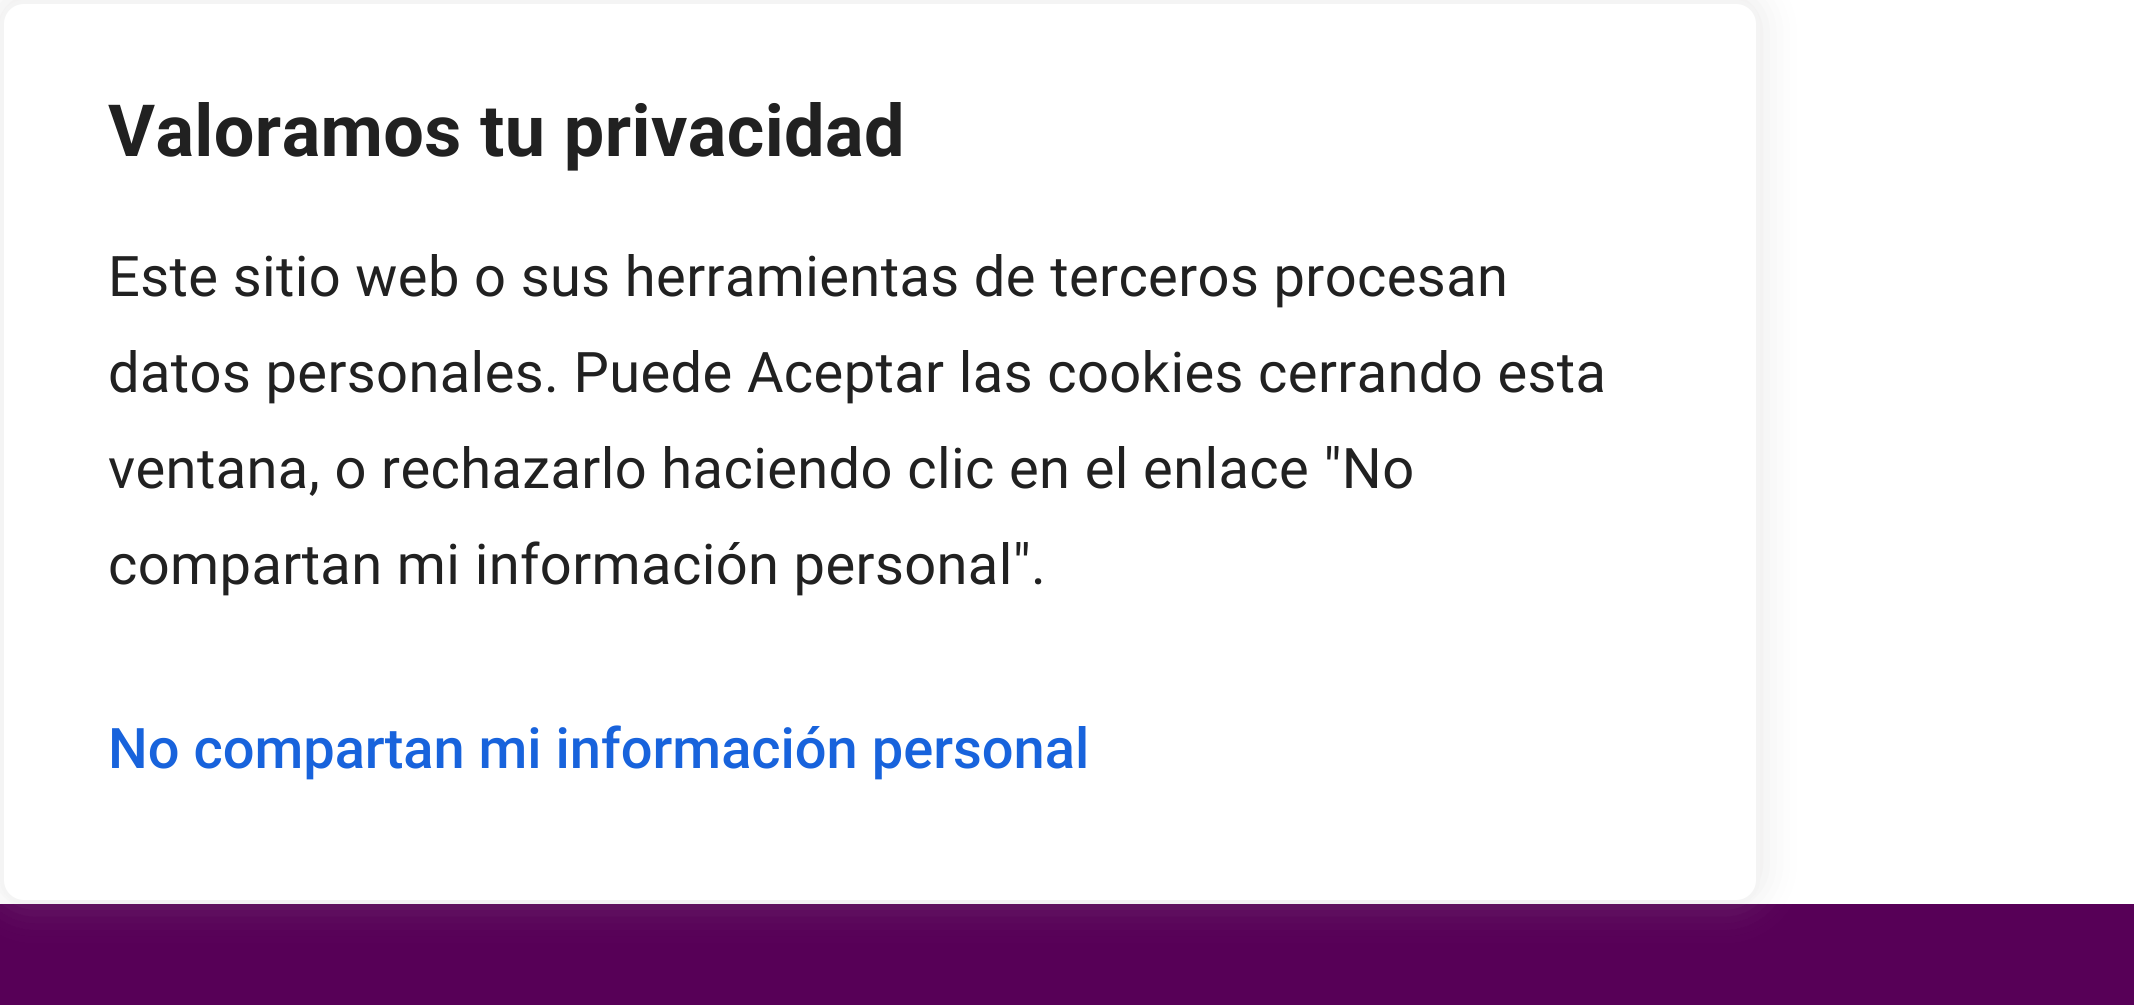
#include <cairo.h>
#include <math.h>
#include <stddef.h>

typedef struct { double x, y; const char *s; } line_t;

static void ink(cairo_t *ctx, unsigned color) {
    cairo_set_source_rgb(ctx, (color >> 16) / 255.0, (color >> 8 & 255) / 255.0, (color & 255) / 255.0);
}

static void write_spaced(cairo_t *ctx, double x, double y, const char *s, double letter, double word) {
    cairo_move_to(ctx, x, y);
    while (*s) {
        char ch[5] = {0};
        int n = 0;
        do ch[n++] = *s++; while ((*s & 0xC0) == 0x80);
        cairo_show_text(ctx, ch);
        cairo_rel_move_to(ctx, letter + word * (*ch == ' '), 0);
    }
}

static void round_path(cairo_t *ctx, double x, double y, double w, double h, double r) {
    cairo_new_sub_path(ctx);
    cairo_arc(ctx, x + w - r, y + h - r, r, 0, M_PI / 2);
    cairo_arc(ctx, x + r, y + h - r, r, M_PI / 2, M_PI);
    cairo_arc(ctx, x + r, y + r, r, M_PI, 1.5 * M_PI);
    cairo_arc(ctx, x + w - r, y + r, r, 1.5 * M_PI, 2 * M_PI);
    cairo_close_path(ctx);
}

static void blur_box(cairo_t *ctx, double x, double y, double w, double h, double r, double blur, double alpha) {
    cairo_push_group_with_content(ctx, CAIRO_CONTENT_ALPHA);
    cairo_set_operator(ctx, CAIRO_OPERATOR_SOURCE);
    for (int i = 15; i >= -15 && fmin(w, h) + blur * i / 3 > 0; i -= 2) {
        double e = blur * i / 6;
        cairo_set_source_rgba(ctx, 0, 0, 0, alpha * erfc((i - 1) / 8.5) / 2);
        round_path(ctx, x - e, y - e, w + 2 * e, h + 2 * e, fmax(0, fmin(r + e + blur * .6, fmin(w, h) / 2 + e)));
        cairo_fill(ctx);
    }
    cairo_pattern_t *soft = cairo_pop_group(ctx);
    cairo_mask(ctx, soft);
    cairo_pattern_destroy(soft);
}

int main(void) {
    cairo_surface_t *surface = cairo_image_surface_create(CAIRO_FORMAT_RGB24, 2134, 1005);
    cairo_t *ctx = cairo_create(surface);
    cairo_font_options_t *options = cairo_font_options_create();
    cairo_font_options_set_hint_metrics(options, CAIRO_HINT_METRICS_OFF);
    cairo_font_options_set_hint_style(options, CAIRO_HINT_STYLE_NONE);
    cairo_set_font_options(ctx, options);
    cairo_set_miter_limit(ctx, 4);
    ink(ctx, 0xFFFFFF);
    cairo_paint(ctx);
    ink(ctx, 0x570057);
    cairo_rectangle(ctx, 0, 904, 2134, 101);
    cairo_fill(ctx);
    ink(ctx, 0xACABAB);
    blur_box(ctx, 0, -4, 1760, 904, 24, 20, 0.3);
    ink(ctx, 0xFFFFFF);
    round_path(ctx, 2, 2, 1756, 900, 22);
    cairo_fill_preserve(ctx);
    ink(ctx, 0xF4F4F4);
    cairo_set_line_width(ctx, 4);
    cairo_stroke(ctx);
    cairo_select_font_face(ctx, "Roboto", CAIRO_FONT_SLANT_NORMAL, CAIRO_FONT_WEIGHT_BOLD);
    cairo_set_font_size(ctx, 72);
    ink(ctx, 0x212121);
    write_spaced(ctx, 108, 156, "Valoramos tu privacidad", 0.4, 0);
    cairo_select_font_face(ctx, "Roboto", CAIRO_FONT_SLANT_NORMAL, CAIRO_FONT_WEIGHT_NORMAL);
    cairo_set_font_size(ctx, 56);
    {
        static const line_t items[] = {
            {108, 296, "Este sitio web o sus herramientas de terceros procesan"},
            {108, 392, "datos personales. Puede Aceptar las cookies cerrando esta"},
            {108, 488, "ventana, o rechazarlo haciendo clic en el enlace \"No"},
            {108, 584, "compartan mi información personal\"."},
        };
        for (size_t i = 0; i < sizeof items / sizeof *items; i++) {
            write_spaced(ctx, items[i].x, items[i].y, items[i].s, 0.4, 0);
        }
    }
    cairo_select_font_face(ctx, "Roboto Medium", CAIRO_FONT_SLANT_NORMAL, CAIRO_FONT_WEIGHT_NORMAL);
    ink(ctx, 0x1863DC);
    cairo_move_to(ctx, 108, 768);
    cairo_show_text(ctx, "No compartan mi información personal");
    cairo_surface_write_to_png(surface, "image.png");
    cairo_font_options_destroy(options);
    cairo_destroy(ctx);
    cairo_surface_destroy(surface);
    return 0;
}
